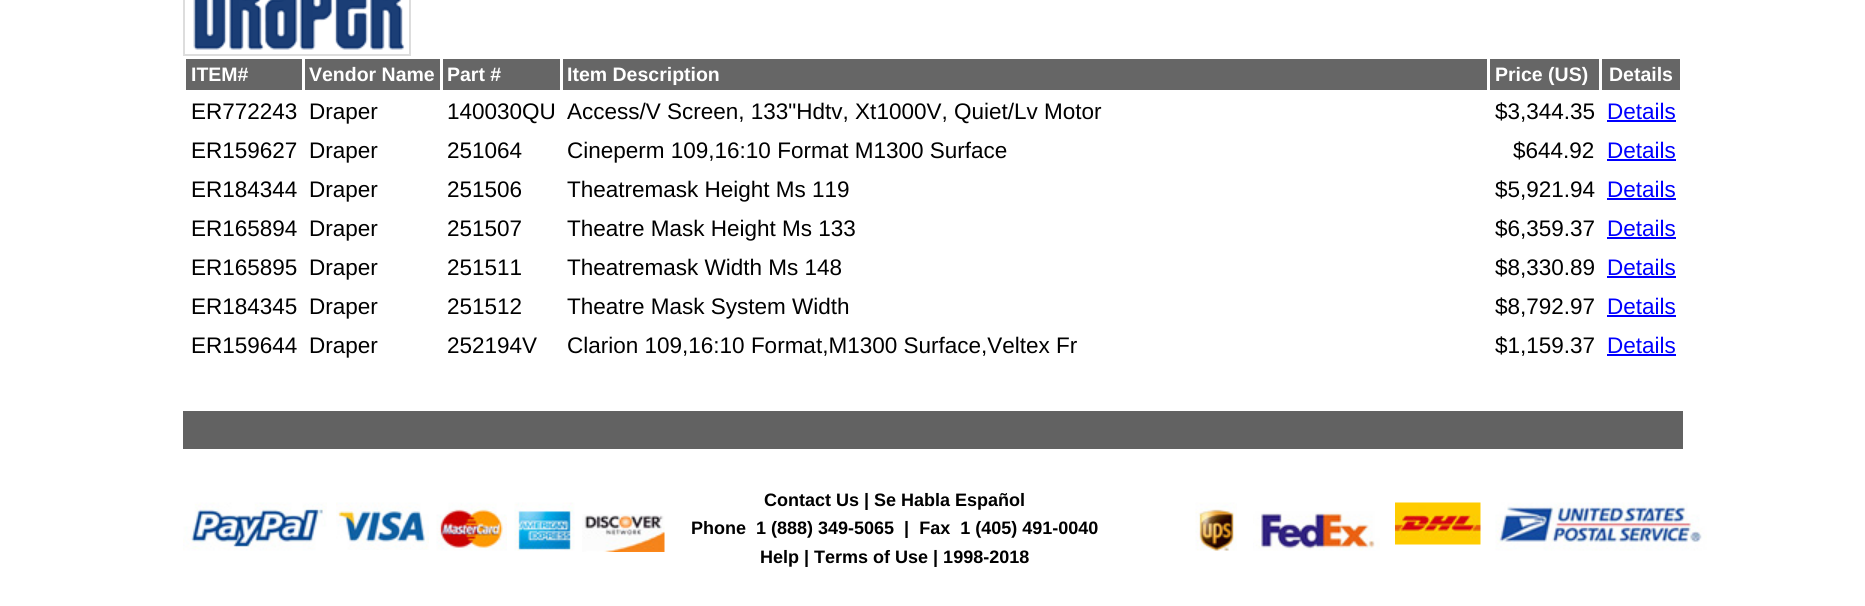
#include <cairo.h>
#include <math.h>
#include <stddef.h>

typedef struct { double x, y; const char *s; } line_t;

static void ink(cairo_t *ctx, unsigned color) {
    cairo_set_source_rgb(ctx, (color >> 16) / 255.0, (color >> 8 & 255) / 255.0, (color & 255) / 255.0);
}

static void paste(cairo_t *ctx, const char *path, double x, double y, double w, double h) {
    cairo_surface_t *image = cairo_image_surface_create_from_png(path);
    cairo_save(ctx);
    cairo_set_source_surface(ctx, image, x, y);
    cairo_rectangle(ctx, x, y, w, h);
    cairo_fill(ctx);
    cairo_restore(ctx);
    cairo_surface_destroy(image);
}

int main(void) {
    cairo_surface_t *surface = cairo_image_surface_create(CAIRO_FORMAT_RGB24, 1865, 606);
    cairo_t *ctx = cairo_create(surface);
    cairo_font_options_t *options = cairo_font_options_create();
    cairo_font_options_set_hint_metrics(options, CAIRO_HINT_METRICS_OFF);
    cairo_font_options_set_hint_style(options, CAIRO_HINT_STYLE_NONE);
    cairo_set_font_options(ctx, options);
    cairo_set_miter_limit(ctx, 4);
    ink(ctx, 0xFFFFFF);
    cairo_paint(ctx);
    cairo_rectangle(ctx, 184, -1, 226, 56);
    ink(ctx, 0xDDDDDD);
    cairo_stroke(ctx);
    paste(ctx, "media/1.png", 193, 0, 212, 50);
    ink(ctx, 0x666666);
    cairo_rectangle(ctx, 186, 59, 116, 31);
    cairo_fill(ctx);
    cairo_select_font_face(ctx, "Liberation Sans", CAIRO_FONT_SLANT_NORMAL, CAIRO_FONT_WEIGHT_BOLD);
    cairo_set_font_size(ctx, 19.5);
    ink(ctx, 0xFFFFFF);
    cairo_move_to(ctx, 191, 81);
    cairo_show_text(ctx, "ITEM#");
    ink(ctx, 0x666666);
    cairo_rectangle(ctx, 305, 59, 135, 31);
    cairo_fill(ctx);
    ink(ctx, 0xFFFFFF);
    cairo_move_to(ctx, 309, 81);
    cairo_show_text(ctx, "Vendor Name");
    ink(ctx, 0x666666);
    cairo_rectangle(ctx, 443, 59, 117, 31);
    cairo_fill(ctx);
    ink(ctx, 0xFFFFFF);
    cairo_move_to(ctx, 447, 81);
    cairo_show_text(ctx, "Part #");
    ink(ctx, 0x666666);
    cairo_rectangle(ctx, 563, 59, 924, 31);
    cairo_fill(ctx);
    ink(ctx, 0xFFFFFF);
    cairo_move_to(ctx, 567, 81);
    cairo_show_text(ctx, "Item Description");
    ink(ctx, 0x666666);
    cairo_rectangle(ctx, 1490, 59, 109, 31);
    cairo_fill(ctx);
    ink(ctx, 0xFFFFFF);
    cairo_move_to(ctx, 1495, 81);
    cairo_show_text(ctx, "Price (US)");
    ink(ctx, 0x666666);
    cairo_rectangle(ctx, 1602, 59, 78, 31);
    cairo_fill(ctx);
    ink(ctx, 0xFFFFFF);
    cairo_move_to(ctx, 1609, 81);
    cairo_show_text(ctx, "Details");
    cairo_select_font_face(ctx, "Liberation Sans", CAIRO_FONT_SLANT_NORMAL, CAIRO_FONT_WEIGHT_NORMAL);
    cairo_set_font_size(ctx, 22.5);
    ink(ctx, 0x000000);
    {
        static const line_t items[] = {
            {191, 119, "ER772243"},
            {309, 119, "Draper"},
            {447, 119, "140030QU"},
            {567, 119, "Access/V Screen, 133\"Hdtv, Xt1000V, Quiet/Lv Motor"},
            {1495, 119, "$3,344.35"},
        };
        for (size_t i = 0; i < sizeof items / sizeof *items; i++) {
            cairo_move_to(ctx, items[i].x, items[i].y);
            cairo_show_text(ctx, items[i].s);
        }
    }
    ink(ctx, 0x0000FF);
    cairo_move_to(ctx, 1607, 119);
    cairo_show_text(ctx, "Details");
    cairo_rectangle(ctx, 1607, 120, 69, 2);
    cairo_fill(ctx);
    ink(ctx, 0x000000);
    {
        static const line_t items[] = {
            {191, 158, "ER159627"},
            {309, 158, "Draper"},
            {447, 158, "251064"},
            {567, 158, "Cineperm 109,16:10 Format M1300 Surface"},
            {1513, 158, "$644.92"},
        };
        for (size_t i = 0; i < sizeof items / sizeof *items; i++) {
            cairo_move_to(ctx, items[i].x, items[i].y);
            cairo_show_text(ctx, items[i].s);
        }
    }
    ink(ctx, 0x0000FF);
    cairo_move_to(ctx, 1607, 158);
    cairo_show_text(ctx, "Details");
    cairo_rectangle(ctx, 1607, 159, 69, 2);
    cairo_fill(ctx);
    ink(ctx, 0x000000);
    {
        static const line_t items[] = {
            {191, 197, "ER184344"},
            {309, 197, "Draper"},
            {447, 197, "251506"},
            {567, 197, "Theatremask Height Ms 119"},
            {1495, 197, "$5,921.94"},
        };
        for (size_t i = 0; i < sizeof items / sizeof *items; i++) {
            cairo_move_to(ctx, items[i].x, items[i].y);
            cairo_show_text(ctx, items[i].s);
        }
    }
    ink(ctx, 0x0000FF);
    cairo_move_to(ctx, 1607, 197);
    cairo_show_text(ctx, "Details");
    cairo_rectangle(ctx, 1607, 198, 69, 2);
    cairo_fill(ctx);
    ink(ctx, 0x000000);
    {
        static const line_t items[] = {
            {191, 236, "ER165894"},
            {309, 236, "Draper"},
            {447, 236, "251507"},
            {567, 236, "Theatre Mask Height Ms 133"},
            {1495, 236, "$6,359.37"},
        };
        for (size_t i = 0; i < sizeof items / sizeof *items; i++) {
            cairo_move_to(ctx, items[i].x, items[i].y);
            cairo_show_text(ctx, items[i].s);
        }
    }
    ink(ctx, 0x0000FF);
    cairo_move_to(ctx, 1607, 236);
    cairo_show_text(ctx, "Details");
    cairo_rectangle(ctx, 1607, 237, 69, 2);
    cairo_fill(ctx);
    ink(ctx, 0x000000);
    {
        static const line_t items[] = {
            {191, 275, "ER165895"},
            {309, 275, "Draper"},
            {447, 275, "251511"},
            {567, 275, "Theatremask Width Ms 148"},
            {1495, 275, "$8,330.89"},
        };
        for (size_t i = 0; i < sizeof items / sizeof *items; i++) {
            cairo_move_to(ctx, items[i].x, items[i].y);
            cairo_show_text(ctx, items[i].s);
        }
    }
    ink(ctx, 0x0000FF);
    cairo_move_to(ctx, 1607, 275);
    cairo_show_text(ctx, "Details");
    cairo_rectangle(ctx, 1607, 276, 69, 2);
    cairo_fill(ctx);
    ink(ctx, 0x000000);
    {
        static const line_t items[] = {
            {191, 314, "ER184345"},
            {309, 314, "Draper"},
            {447, 314, "251512"},
            {567, 314, "Theatre Mask System Width"},
            {1495, 314, "$8,792.97"},
        };
        for (size_t i = 0; i < sizeof items / sizeof *items; i++) {
            cairo_move_to(ctx, items[i].x, items[i].y);
            cairo_show_text(ctx, items[i].s);
        }
    }
    ink(ctx, 0x0000FF);
    cairo_move_to(ctx, 1607, 314);
    cairo_show_text(ctx, "Details");
    cairo_rectangle(ctx, 1607, 315, 69, 2);
    cairo_fill(ctx);
    ink(ctx, 0x000000);
    {
        static const line_t items[] = {
            {191, 353, "ER159644"},
            {309, 353, "Draper"},
            {447, 353, "252194V"},
            {567, 353, "Clarion 109,16:10 Format,M1300 Surface,Veltex Fr"},
            {1495, 353, "$1,159.37"},
        };
        for (size_t i = 0; i < sizeof items / sizeof *items; i++) {
            cairo_move_to(ctx, items[i].x, items[i].y);
            cairo_show_text(ctx, items[i].s);
        }
    }
    ink(ctx, 0x0000FF);
    cairo_move_to(ctx, 1607, 353);
    cairo_show_text(ctx, "Details");
    cairo_rectangle(ctx, 1607, 354, 69, 2);
    cairo_fill(ctx);
    ink(ctx, 0x626262);
    cairo_rectangle(ctx, 183, 411, 1500, 38);
    cairo_fill(ctx);
    paste(ctx, "media/2.png", 183, 502, 144, 49);
    paste(ctx, "media/3.png", 336, 502, 93, 48);
    paste(ctx, "media/4.png", 436, 502, 71, 49);
    paste(ctx, "media/5.png", 514, 502, 61, 49);
    paste(ctx, "media/6.png", 582, 514, 83, 38);
    cairo_select_font_face(ctx, "Liberation Sans", CAIRO_FONT_SLANT_NORMAL, CAIRO_FONT_WEIGHT_BOLD);
    cairo_set_font_size(ctx, 18);
    ink(ctx, 0x000000);
    {
        static const line_t items[] = {
            {764, 506, "Contact Us | Se Habla Español"},
            {691, 534, "Phone  1 (888) 349-5065  |  Fax  1 (405) 491-0040"},
            {760, 563, "Help | Terms of Use | 1998-2018"},
        };
        for (size_t i = 0; i < sizeof items / sizeof *items; i++) {
            cairo_move_to(ctx, items[i].x, items[i].y);
            cairo_show_text(ctx, items[i].s);
        }
    }
    paste(ctx, "media/7.png", 1195, 502, 42, 49);
    paste(ctx, "media/8.png", 1253, 511, 127, 40);
    paste(ctx, "media/9.png", 1395, 502, 86, 43);
    paste(ctx, "media/10.png", 1495, 502, 212, 49);
    cairo_surface_write_to_png(surface, "image.png");
    cairo_font_options_destroy(options);
    cairo_destroy(ctx);
    cairo_surface_destroy(surface);
    return 0;
}
